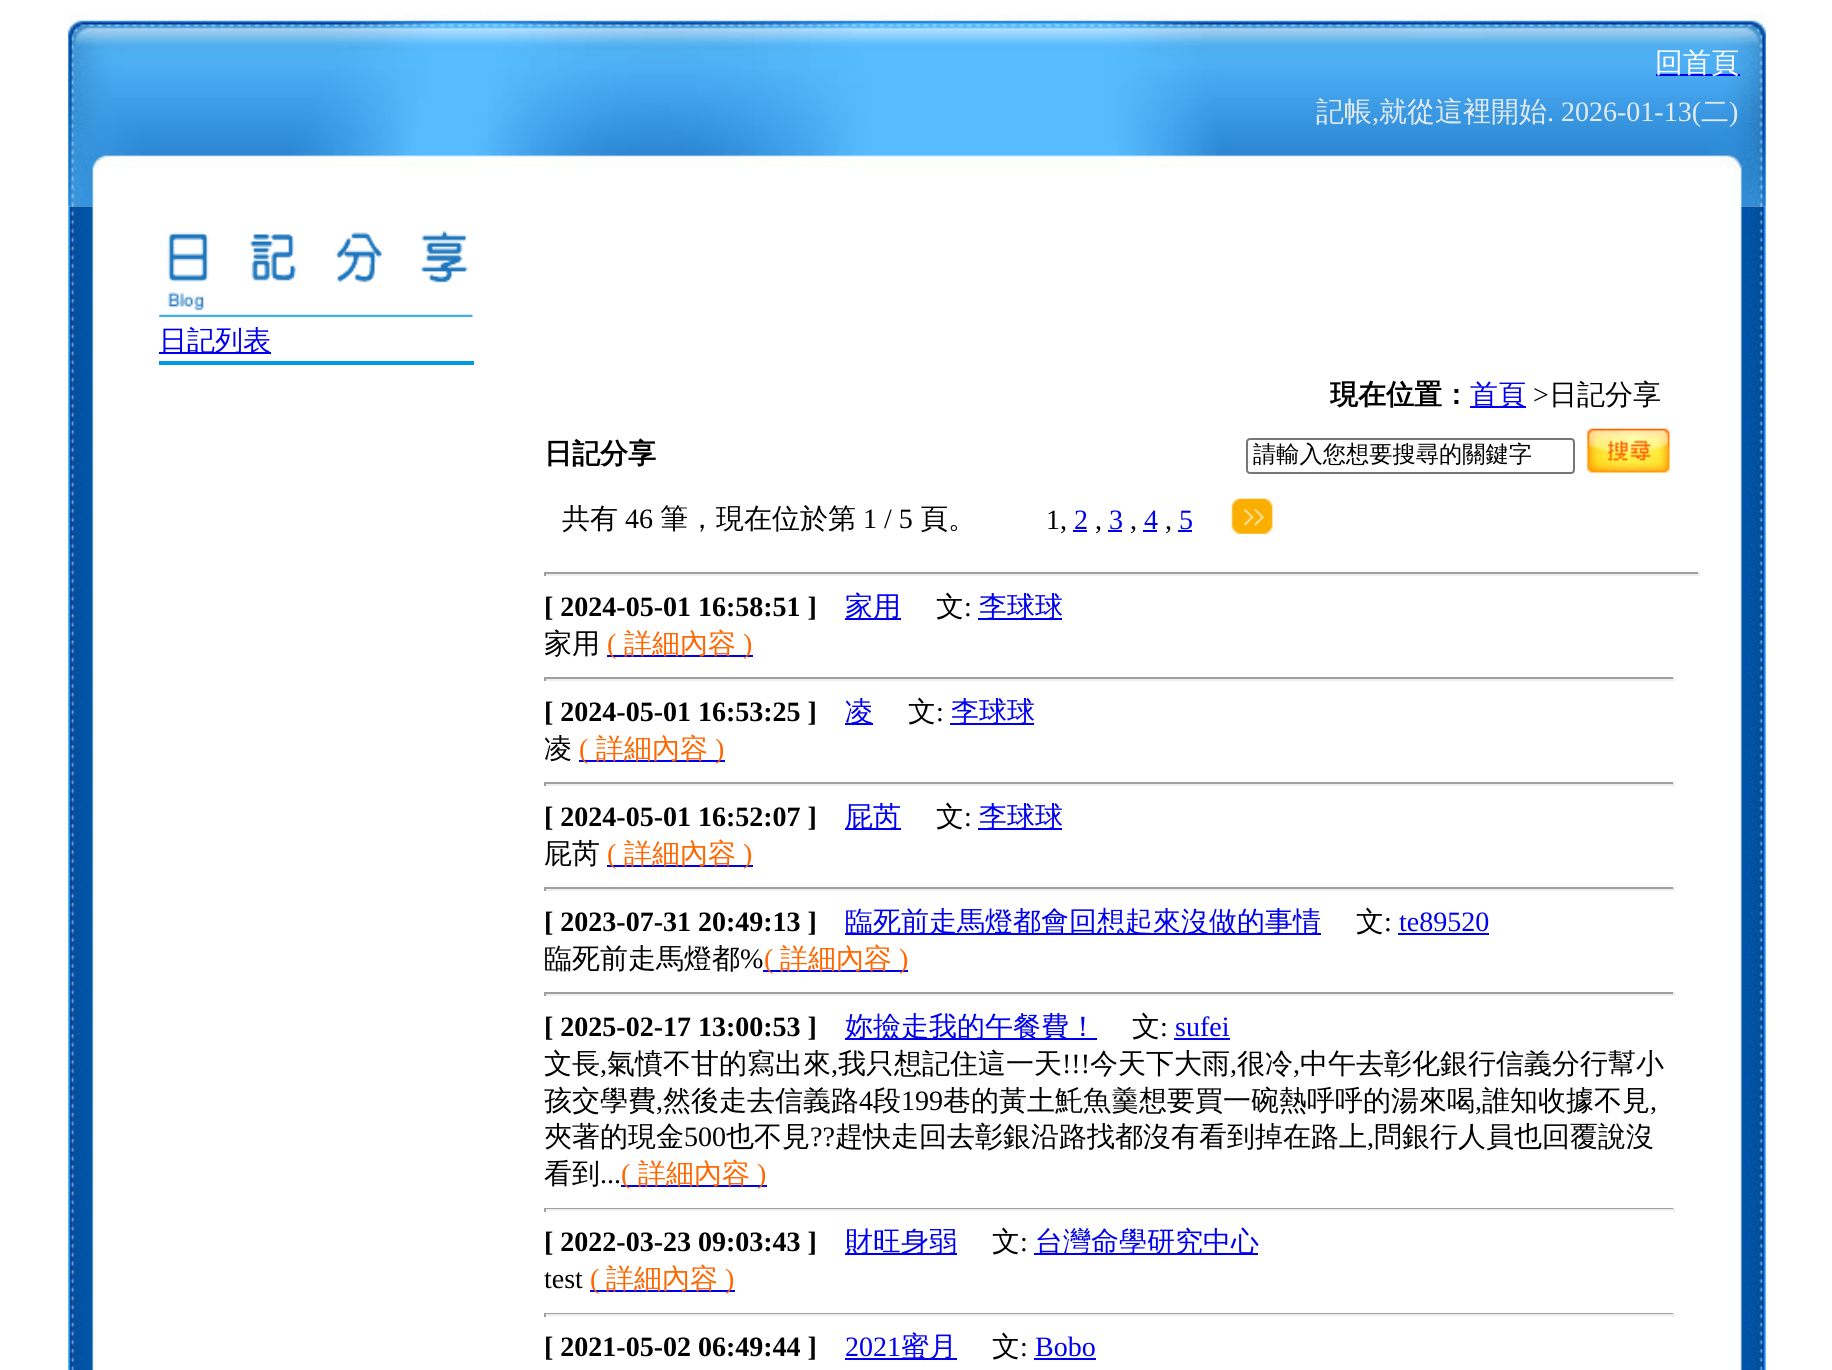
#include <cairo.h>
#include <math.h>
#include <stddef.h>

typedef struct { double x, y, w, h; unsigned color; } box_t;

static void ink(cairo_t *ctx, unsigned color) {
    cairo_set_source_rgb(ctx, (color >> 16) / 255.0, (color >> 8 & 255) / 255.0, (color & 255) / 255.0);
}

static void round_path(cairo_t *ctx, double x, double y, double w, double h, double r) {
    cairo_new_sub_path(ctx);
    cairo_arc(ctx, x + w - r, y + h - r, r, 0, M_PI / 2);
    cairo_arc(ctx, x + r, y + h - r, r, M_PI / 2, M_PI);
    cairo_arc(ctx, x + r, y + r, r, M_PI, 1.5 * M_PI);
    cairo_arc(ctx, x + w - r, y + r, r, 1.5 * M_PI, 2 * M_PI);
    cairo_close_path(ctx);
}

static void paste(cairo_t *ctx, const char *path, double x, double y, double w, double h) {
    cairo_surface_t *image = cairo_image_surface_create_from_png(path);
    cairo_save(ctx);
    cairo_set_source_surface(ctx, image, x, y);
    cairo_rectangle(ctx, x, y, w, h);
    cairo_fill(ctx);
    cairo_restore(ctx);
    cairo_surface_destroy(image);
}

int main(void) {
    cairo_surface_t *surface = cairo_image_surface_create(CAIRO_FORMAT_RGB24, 1832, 1370);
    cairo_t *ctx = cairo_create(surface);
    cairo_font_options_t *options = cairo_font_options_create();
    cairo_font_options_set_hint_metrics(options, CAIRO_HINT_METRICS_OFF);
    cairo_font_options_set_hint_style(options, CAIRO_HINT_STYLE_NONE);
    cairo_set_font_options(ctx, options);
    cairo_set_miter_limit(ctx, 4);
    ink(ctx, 0xFFFFFF);
    cairo_paint(ctx);
    paste(ctx, "media/1.png", 68, 14, 1698, 193);
    ink(ctx, 0x0000EE);
    cairo_rectangle(ctx, 1656, 74, 84, 2);
    cairo_fill(ctx);
    cairo_select_font_face(ctx, "WenQuanYi Zen Hei Medium", CAIRO_FONT_SLANT_NORMAL, CAIRO_FONT_WEIGHT_NORMAL);
    cairo_set_font_size(ctx, 28);
    ink(ctx, 0xFFFFFF);
    cairo_move_to(ctx, 1655, 72);
    cairo_show_text(ctx, "回首頁");
    ink(ctx, 0xE3EBEE);
    cairo_move_to(ctx, 1316, 121);
    cairo_show_text(ctx, "記帳");
    cairo_select_font_face(ctx, "Liberation Serif", CAIRO_FONT_SLANT_NORMAL, CAIRO_FONT_WEIGHT_NORMAL);
    cairo_move_to(ctx, 1372, 121);
    cairo_show_text(ctx, ",");
    cairo_select_font_face(ctx, "WenQuanYi Zen Hei Medium", CAIRO_FONT_SLANT_NORMAL, CAIRO_FONT_WEIGHT_NORMAL);
    cairo_move_to(ctx, 1379, 121);
    cairo_show_text(ctx, "就從這裡開始");
    cairo_select_font_face(ctx, "Liberation Serif", CAIRO_FONT_SLANT_NORMAL, CAIRO_FONT_WEIGHT_NORMAL);
    cairo_move_to(ctx, 1547, 121);
    cairo_show_text(ctx, ". 2026-01-13(");
    cairo_select_font_face(ctx, "WenQuanYi Zen Hei Medium", CAIRO_FONT_SLANT_NORMAL, CAIRO_FONT_WEIGHT_NORMAL);
    cairo_move_to(ctx, 1701, 121);
    cairo_show_text(ctx, "二");
    cairo_select_font_face(ctx, "Liberation Serif", CAIRO_FONT_SLANT_NORMAL, CAIRO_FONT_WEIGHT_NORMAL);
    cairo_move_to(ctx, 1729, 121);
    cairo_show_text(ctx, ")");
    paste(ctx, "media/2.png", 68, 206, 1698, 1164);
    paste(ctx, "media/3.png", 159, 230, 314, 87);
    ink(ctx, 0x0000EE);
    cairo_rectangle(ctx, 159, 352, 112, 2);
    cairo_fill(ctx);
    cairo_select_font_face(ctx, "WenQuanYi Zen Hei Medium", CAIRO_FONT_SLANT_NORMAL, CAIRO_FONT_WEIGHT_NORMAL);
    cairo_move_to(ctx, 159, 350);
    cairo_show_text(ctx, "日記列表");
    ink(ctx, 0x0099E3);
    cairo_rectangle(ctx, 159, 361, 315, 4);
    cairo_fill(ctx);
    cairo_select_font_face(ctx, "WenQuanYi Zen Hei", CAIRO_FONT_SLANT_NORMAL, CAIRO_FONT_WEIGHT_BOLD);
    ink(ctx, 0x000000);
    cairo_move_to(ctx, 1330, 404);
    cairo_show_text(ctx, "現在位置：");
    ink(ctx, 0x0000EE);
    cairo_rectangle(ctx, 1470, 406, 56, 2);
    cairo_fill(ctx);
    cairo_select_font_face(ctx, "WenQuanYi Zen Hei Medium", CAIRO_FONT_SLANT_NORMAL, CAIRO_FONT_WEIGHT_NORMAL);
    cairo_move_to(ctx, 1470, 404);
    cairo_show_text(ctx, "首頁");
    cairo_select_font_face(ctx, "Liberation Serif", CAIRO_FONT_SLANT_NORMAL, CAIRO_FONT_WEIGHT_NORMAL);
    ink(ctx, 0x000000);
    cairo_move_to(ctx, 1533, 404);
    cairo_show_text(ctx, ">");
    cairo_select_font_face(ctx, "WenQuanYi Zen Hei Medium", CAIRO_FONT_SLANT_NORMAL, CAIRO_FONT_WEIGHT_NORMAL);
    cairo_move_to(ctx, 1549, 404);
    cairo_show_text(ctx, "日記分享");
    cairo_select_font_face(ctx, "WenQuanYi Zen Hei", CAIRO_FONT_SLANT_NORMAL, CAIRO_FONT_WEIGHT_BOLD);
    cairo_move_to(ctx, 544, 463);
    cairo_show_text(ctx, "日記分享");
    round_path(ctx, 1247, 439, 327, 34, 3);
    ink(ctx, 0x767676);
    cairo_stroke(ctx);
    cairo_select_font_face(ctx, "WenQuanYi Zen Hei Medium", CAIRO_FONT_SLANT_NORMAL, CAIRO_FONT_WEIGHT_NORMAL);
    cairo_set_font_size(ctx, 23.25);
    ink(ctx, 0x000000);
    cairo_move_to(ctx, 1253, 462);
    cairo_show_text(ctx, "請輸入您想要搜尋的關鍵字");
    paste(ctx, "media/4.png", 1586, 428, 84, 45);
    cairo_set_font_size(ctx, 28);
    cairo_move_to(ctx, 562, 528);
    cairo_show_text(ctx, "共有");
    cairo_select_font_face(ctx, "Liberation Serif", CAIRO_FONT_SLANT_NORMAL, CAIRO_FONT_WEIGHT_NORMAL);
    cairo_move_to(ctx, 625, 528);
    cairo_show_text(ctx, "46");
    cairo_select_font_face(ctx, "WenQuanYi Zen Hei Medium", CAIRO_FONT_SLANT_NORMAL, CAIRO_FONT_WEIGHT_NORMAL);
    cairo_move_to(ctx, 660, 528);
    cairo_show_text(ctx, "筆，現在位於第");
    cairo_select_font_face(ctx, "Liberation Serif", CAIRO_FONT_SLANT_NORMAL, CAIRO_FONT_WEIGHT_NORMAL);
    cairo_move_to(ctx, 863, 528);
    cairo_show_text(ctx, "1 / 5");
    cairo_select_font_face(ctx, "WenQuanYi Zen Hei Medium", CAIRO_FONT_SLANT_NORMAL, CAIRO_FONT_WEIGHT_NORMAL);
    cairo_move_to(ctx, 920, 528);
    cairo_show_text(ctx, "頁。");
    cairo_select_font_face(ctx, "Liberation Serif", CAIRO_FONT_SLANT_NORMAL, CAIRO_FONT_WEIGHT_NORMAL);
    cairo_move_to(ctx, 1046, 529);
    cairo_show_text(ctx, "1,");
    ink(ctx, 0x0000EE);
    cairo_move_to(ctx, 1074, 529);
    cairo_show_text(ctx, "2");
    cairo_rectangle(ctx, 1073, 530, 14, 2);
    cairo_fill(ctx);
    ink(ctx, 0x000000);
    cairo_move_to(ctx, 1095, 529);
    cairo_show_text(ctx, ",");
    ink(ctx, 0x0000EE);
    cairo_move_to(ctx, 1109, 529);
    cairo_show_text(ctx, "3");
    cairo_rectangle(ctx, 1108, 530, 14, 2);
    cairo_fill(ctx);
    ink(ctx, 0x000000);
    cairo_move_to(ctx, 1130, 529);
    cairo_show_text(ctx, ",");
    ink(ctx, 0x0000EE);
    cairo_move_to(ctx, 1144, 529);
    cairo_show_text(ctx, "4");
    cairo_rectangle(ctx, 1143, 530, 14, 2);
    cairo_fill(ctx);
    ink(ctx, 0x000000);
    cairo_move_to(ctx, 1165, 529);
    cairo_show_text(ctx, ",");
    ink(ctx, 0x0000EE);
    cairo_move_to(ctx, 1179, 529);
    cairo_show_text(ctx, "5");
    cairo_rectangle(ctx, 1178, 530, 14, 2);
    cairo_fill(ctx);
    paste(ctx, "media/5.png", 1231, 498, 42, 36);
    {
        static const box_t items[] = {
            {544, 572, 1155, 2, 0x9F9F9F},
            {1698, 572, 2, 4, 0xEEEEEE},
            {544, 574, 1155, 2, 0xEEEEEE},
            {544, 572, 2, 4, 0x9F9F9F},
        };
        for (size_t i = 0; i < sizeof items / sizeof *items; i++) {
            ink(ctx, items[i].color);
            cairo_rectangle(ctx, items[i].x, items[i].y, items[i].w, items[i].h);
            cairo_fill(ctx);
        }
    }
    cairo_select_font_face(ctx, "Liberation Serif", CAIRO_FONT_SLANT_NORMAL, CAIRO_FONT_WEIGHT_BOLD);
    ink(ctx, 0x000000);
    cairo_move_to(ctx, 544, 616);
    cairo_show_text(ctx, "[ 2024-05-01 16:58:51 ]");
    ink(ctx, 0x0000EE);
    cairo_rectangle(ctx, 845, 618, 56, 2);
    cairo_fill(ctx);
    cairo_select_font_face(ctx, "WenQuanYi Zen Hei Medium", CAIRO_FONT_SLANT_NORMAL, CAIRO_FONT_WEIGHT_NORMAL);
    cairo_move_to(ctx, 845, 616);
    cairo_show_text(ctx, "家用");
    ink(ctx, 0x000000);
    cairo_move_to(ctx, 936, 616);
    cairo_show_text(ctx, "文");
    cairo_select_font_face(ctx, "Liberation Serif", CAIRO_FONT_SLANT_NORMAL, CAIRO_FONT_WEIGHT_NORMAL);
    cairo_move_to(ctx, 964, 616);
    cairo_show_text(ctx, ":");
    ink(ctx, 0x0000EE);
    cairo_rectangle(ctx, 978, 618, 84, 2);
    cairo_fill(ctx);
    cairo_select_font_face(ctx, "WenQuanYi Zen Hei Medium", CAIRO_FONT_SLANT_NORMAL, CAIRO_FONT_WEIGHT_NORMAL);
    cairo_move_to(ctx, 979, 616);
    cairo_show_text(ctx, "李球球");
    ink(ctx, 0x000000);
    cairo_move_to(ctx, 544, 653);
    cairo_show_text(ctx, "家用");
    ink(ctx, 0x0000EE);
    cairo_rectangle(ctx, 607, 655, 146, 2);
    cairo_fill(ctx);
    cairo_select_font_face(ctx, "Liberation Serif", CAIRO_FONT_SLANT_NORMAL, CAIRO_FONT_WEIGHT_NORMAL);
    ink(ctx, 0xFF6600);
    cairo_move_to(ctx, 607, 653);
    cairo_show_text(ctx, "(");
    cairo_select_font_face(ctx, "WenQuanYi Zen Hei Medium", CAIRO_FONT_SLANT_NORMAL, CAIRO_FONT_WEIGHT_NORMAL);
    cairo_move_to(ctx, 624, 653);
    cairo_show_text(ctx, "詳細內容");
    cairo_select_font_face(ctx, "Liberation Serif", CAIRO_FONT_SLANT_NORMAL, CAIRO_FONT_WEIGHT_NORMAL);
    cairo_move_to(ctx, 743, 653);
    cairo_show_text(ctx, ")");
    {
        static const box_t items[] = {
            {544, 677, 1131, 2, 0x9F9F9F},
            {1673, 677, 2, 4, 0xEEEEEE},
            {544, 679, 1131, 2, 0xEEEEEE},
            {544, 677, 2, 4, 0x9F9F9F},
        };
        for (size_t i = 0; i < sizeof items / sizeof *items; i++) {
            ink(ctx, items[i].color);
            cairo_rectangle(ctx, items[i].x, items[i].y, items[i].w, items[i].h);
            cairo_fill(ctx);
        }
    }
    cairo_select_font_face(ctx, "Liberation Serif", CAIRO_FONT_SLANT_NORMAL, CAIRO_FONT_WEIGHT_BOLD);
    ink(ctx, 0x000000);
    cairo_move_to(ctx, 544, 721);
    cairo_show_text(ctx, "[ 2024-05-01 16:53:25 ]");
    ink(ctx, 0x0000EE);
    cairo_rectangle(ctx, 845, 723, 28, 2);
    cairo_fill(ctx);
    cairo_select_font_face(ctx, "WenQuanYi Zen Hei Medium", CAIRO_FONT_SLANT_NORMAL, CAIRO_FONT_WEIGHT_NORMAL);
    cairo_move_to(ctx, 845, 721);
    cairo_show_text(ctx, "凌");
    ink(ctx, 0x000000);
    cairo_move_to(ctx, 908, 721);
    cairo_show_text(ctx, "文");
    cairo_select_font_face(ctx, "Liberation Serif", CAIRO_FONT_SLANT_NORMAL, CAIRO_FONT_WEIGHT_NORMAL);
    cairo_move_to(ctx, 936, 721);
    cairo_show_text(ctx, ":");
    ink(ctx, 0x0000EE);
    cairo_rectangle(ctx, 950, 723, 84, 2);
    cairo_fill(ctx);
    cairo_select_font_face(ctx, "WenQuanYi Zen Hei Medium", CAIRO_FONT_SLANT_NORMAL, CAIRO_FONT_WEIGHT_NORMAL);
    cairo_move_to(ctx, 951, 721);
    cairo_show_text(ctx, "李球球");
    ink(ctx, 0x000000);
    cairo_move_to(ctx, 544, 758);
    cairo_show_text(ctx, "凌");
    ink(ctx, 0x0000EE);
    cairo_rectangle(ctx, 579, 760, 146, 2);
    cairo_fill(ctx);
    cairo_select_font_face(ctx, "Liberation Serif", CAIRO_FONT_SLANT_NORMAL, CAIRO_FONT_WEIGHT_NORMAL);
    ink(ctx, 0xFF6600);
    cairo_move_to(ctx, 579, 758);
    cairo_show_text(ctx, "(");
    cairo_select_font_face(ctx, "WenQuanYi Zen Hei Medium", CAIRO_FONT_SLANT_NORMAL, CAIRO_FONT_WEIGHT_NORMAL);
    cairo_move_to(ctx, 596, 758);
    cairo_show_text(ctx, "詳細內容");
    cairo_select_font_face(ctx, "Liberation Serif", CAIRO_FONT_SLANT_NORMAL, CAIRO_FONT_WEIGHT_NORMAL);
    cairo_move_to(ctx, 715, 758);
    cairo_show_text(ctx, ")");
    {
        static const box_t items[] = {
            {544, 782, 1131, 2, 0x9F9F9F},
            {1673, 782, 2, 4, 0xEEEEEE},
            {544, 784, 1131, 2, 0xEEEEEE},
            {544, 782, 2, 4, 0x9F9F9F},
        };
        for (size_t i = 0; i < sizeof items / sizeof *items; i++) {
            ink(ctx, items[i].color);
            cairo_rectangle(ctx, items[i].x, items[i].y, items[i].w, items[i].h);
            cairo_fill(ctx);
        }
    }
    cairo_select_font_face(ctx, "Liberation Serif", CAIRO_FONT_SLANT_NORMAL, CAIRO_FONT_WEIGHT_BOLD);
    ink(ctx, 0x000000);
    cairo_move_to(ctx, 544, 826);
    cairo_show_text(ctx, "[ 2024-05-01 16:52:07 ]");
    ink(ctx, 0x0000EE);
    cairo_rectangle(ctx, 845, 828, 56, 2);
    cairo_fill(ctx);
    cairo_select_font_face(ctx, "WenQuanYi Zen Hei Medium", CAIRO_FONT_SLANT_NORMAL, CAIRO_FONT_WEIGHT_NORMAL);
    cairo_move_to(ctx, 845, 826);
    cairo_show_text(ctx, "屁芮");
    ink(ctx, 0x000000);
    cairo_move_to(ctx, 936, 826);
    cairo_show_text(ctx, "文");
    cairo_select_font_face(ctx, "Liberation Serif", CAIRO_FONT_SLANT_NORMAL, CAIRO_FONT_WEIGHT_NORMAL);
    cairo_move_to(ctx, 964, 826);
    cairo_show_text(ctx, ":");
    ink(ctx, 0x0000EE);
    cairo_rectangle(ctx, 978, 828, 84, 2);
    cairo_fill(ctx);
    cairo_select_font_face(ctx, "WenQuanYi Zen Hei Medium", CAIRO_FONT_SLANT_NORMAL, CAIRO_FONT_WEIGHT_NORMAL);
    cairo_move_to(ctx, 979, 826);
    cairo_show_text(ctx, "李球球");
    ink(ctx, 0x000000);
    cairo_move_to(ctx, 544, 863);
    cairo_show_text(ctx, "屁芮");
    ink(ctx, 0x0000EE);
    cairo_rectangle(ctx, 607, 865, 146, 2);
    cairo_fill(ctx);
    cairo_select_font_face(ctx, "Liberation Serif", CAIRO_FONT_SLANT_NORMAL, CAIRO_FONT_WEIGHT_NORMAL);
    ink(ctx, 0xFF6600);
    cairo_move_to(ctx, 607, 863);
    cairo_show_text(ctx, "(");
    cairo_select_font_face(ctx, "WenQuanYi Zen Hei Medium", CAIRO_FONT_SLANT_NORMAL, CAIRO_FONT_WEIGHT_NORMAL);
    cairo_move_to(ctx, 624, 863);
    cairo_show_text(ctx, "詳細內容");
    cairo_select_font_face(ctx, "Liberation Serif", CAIRO_FONT_SLANT_NORMAL, CAIRO_FONT_WEIGHT_NORMAL);
    cairo_move_to(ctx, 743, 863);
    cairo_show_text(ctx, ")");
    {
        static const box_t items[] = {
            {544, 887, 1131, 2, 0x9F9F9F},
            {1673, 887, 2, 4, 0xEEEEEE},
            {544, 889, 1131, 2, 0xEEEEEE},
            {544, 887, 2, 4, 0x9F9F9F},
        };
        for (size_t i = 0; i < sizeof items / sizeof *items; i++) {
            ink(ctx, items[i].color);
            cairo_rectangle(ctx, items[i].x, items[i].y, items[i].w, items[i].h);
            cairo_fill(ctx);
        }
    }
    cairo_select_font_face(ctx, "Liberation Serif", CAIRO_FONT_SLANT_NORMAL, CAIRO_FONT_WEIGHT_BOLD);
    ink(ctx, 0x000000);
    cairo_move_to(ctx, 544, 931);
    cairo_show_text(ctx, "[ 2023-07-31 20:49:13 ]");
    ink(ctx, 0x0000EE);
    cairo_rectangle(ctx, 845, 933, 476, 2);
    cairo_fill(ctx);
    cairo_select_font_face(ctx, "WenQuanYi Zen Hei Medium", CAIRO_FONT_SLANT_NORMAL, CAIRO_FONT_WEIGHT_NORMAL);
    cairo_move_to(ctx, 845, 931);
    cairo_show_text(ctx, "臨死前走馬燈都會回想起來沒做的事情");
    ink(ctx, 0x000000);
    cairo_move_to(ctx, 1356, 931);
    cairo_show_text(ctx, "文");
    cairo_select_font_face(ctx, "Liberation Serif", CAIRO_FONT_SLANT_NORMAL, CAIRO_FONT_WEIGHT_NORMAL);
    cairo_move_to(ctx, 1384, 931);
    cairo_show_text(ctx, ":");
    ink(ctx, 0x0000EE);
    cairo_move_to(ctx, 1399, 931);
    cairo_show_text(ctx, "te89520");
    cairo_rectangle(ctx, 1398, 933, 91, 2);
    cairo_fill(ctx);
    cairo_select_font_face(ctx, "WenQuanYi Zen Hei Medium", CAIRO_FONT_SLANT_NORMAL, CAIRO_FONT_WEIGHT_NORMAL);
    ink(ctx, 0x000000);
    cairo_move_to(ctx, 544, 968);
    cairo_show_text(ctx, "臨死前走馬燈都");
    cairo_select_font_face(ctx, "Liberation Serif", CAIRO_FONT_SLANT_NORMAL, CAIRO_FONT_WEIGHT_NORMAL);
    cairo_move_to(ctx, 740, 968);
    cairo_show_text(ctx, "%");
    ink(ctx, 0x0000EE);
    cairo_rectangle(ctx, 763, 970, 145, 2);
    cairo_fill(ctx);
    ink(ctx, 0xFF6600);
    cairo_move_to(ctx, 764, 968);
    cairo_show_text(ctx, "(");
    cairo_select_font_face(ctx, "WenQuanYi Zen Hei Medium", CAIRO_FONT_SLANT_NORMAL, CAIRO_FONT_WEIGHT_NORMAL);
    cairo_move_to(ctx, 780, 968);
    cairo_show_text(ctx, "詳細內容");
    cairo_select_font_face(ctx, "Liberation Serif", CAIRO_FONT_SLANT_NORMAL, CAIRO_FONT_WEIGHT_NORMAL);
    cairo_move_to(ctx, 899, 968);
    cairo_show_text(ctx, ")");
    {
        static const box_t items[] = {
            {544, 992, 1131, 2, 0x9F9F9F},
            {1673, 992, 2, 4, 0xEEEEEE},
            {544, 994, 1131, 2, 0xEEEEEE},
            {544, 992, 2, 4, 0x9F9F9F},
        };
        for (size_t i = 0; i < sizeof items / sizeof *items; i++) {
            ink(ctx, items[i].color);
            cairo_rectangle(ctx, items[i].x, items[i].y, items[i].w, items[i].h);
            cairo_fill(ctx);
        }
    }
    cairo_select_font_face(ctx, "Liberation Serif", CAIRO_FONT_SLANT_NORMAL, CAIRO_FONT_WEIGHT_BOLD);
    ink(ctx, 0x000000);
    cairo_move_to(ctx, 544, 1036);
    cairo_show_text(ctx, "[ 2025-02-17 13:00:53 ]");
    ink(ctx, 0x0000EE);
    cairo_rectangle(ctx, 845, 1038, 252, 2);
    cairo_fill(ctx);
    cairo_select_font_face(ctx, "WenQuanYi Zen Hei Medium", CAIRO_FONT_SLANT_NORMAL, CAIRO_FONT_WEIGHT_NORMAL);
    cairo_move_to(ctx, 845, 1036);
    cairo_show_text(ctx, "妳撿走我的午餐費！");
    ink(ctx, 0x000000);
    cairo_move_to(ctx, 1132, 1036);
    cairo_show_text(ctx, "文");
    cairo_select_font_face(ctx, "Liberation Serif", CAIRO_FONT_SLANT_NORMAL, CAIRO_FONT_WEIGHT_NORMAL);
    cairo_move_to(ctx, 1160, 1036);
    cairo_show_text(ctx, ":");
    ink(ctx, 0x0000EE);
    cairo_move_to(ctx, 1175, 1036);
    cairo_show_text(ctx, "sufei");
    cairo_rectangle(ctx, 1174, 1038, 56, 2);
    cairo_fill(ctx);
    cairo_select_font_face(ctx, "WenQuanYi Zen Hei Medium", CAIRO_FONT_SLANT_NORMAL, CAIRO_FONT_WEIGHT_NORMAL);
    ink(ctx, 0x000000);
    cairo_move_to(ctx, 544, 1073);
    cairo_show_text(ctx, "文長");
    cairo_select_font_face(ctx, "Liberation Serif", CAIRO_FONT_SLANT_NORMAL, CAIRO_FONT_WEIGHT_NORMAL);
    cairo_move_to(ctx, 600, 1073);
    cairo_show_text(ctx, ",");
    cairo_select_font_face(ctx, "WenQuanYi Zen Hei Medium", CAIRO_FONT_SLANT_NORMAL, CAIRO_FONT_WEIGHT_NORMAL);
    cairo_move_to(ctx, 607, 1073);
    cairo_show_text(ctx, "氣憤不甘的寫出來");
    cairo_select_font_face(ctx, "Liberation Serif", CAIRO_FONT_SLANT_NORMAL, CAIRO_FONT_WEIGHT_NORMAL);
    cairo_move_to(ctx, 831, 1073);
    cairo_show_text(ctx, ",");
    cairo_select_font_face(ctx, "WenQuanYi Zen Hei Medium", CAIRO_FONT_SLANT_NORMAL, CAIRO_FONT_WEIGHT_NORMAL);
    cairo_move_to(ctx, 838, 1073);
    cairo_show_text(ctx, "我只想記住這一天");
    cairo_select_font_face(ctx, "Liberation Serif", CAIRO_FONT_SLANT_NORMAL, CAIRO_FONT_WEIGHT_NORMAL);
    cairo_move_to(ctx, 1062, 1073);
    cairo_show_text(ctx, "!!!");
    cairo_select_font_face(ctx, "WenQuanYi Zen Hei Medium", CAIRO_FONT_SLANT_NORMAL, CAIRO_FONT_WEIGHT_NORMAL);
    cairo_move_to(ctx, 1090, 1073);
    cairo_show_text(ctx, "今天下大雨");
    cairo_select_font_face(ctx, "Liberation Serif", CAIRO_FONT_SLANT_NORMAL, CAIRO_FONT_WEIGHT_NORMAL);
    cairo_move_to(ctx, 1230, 1073);
    cairo_show_text(ctx, ",");
    cairo_select_font_face(ctx, "WenQuanYi Zen Hei Medium", CAIRO_FONT_SLANT_NORMAL, CAIRO_FONT_WEIGHT_NORMAL);
    cairo_move_to(ctx, 1237, 1073);
    cairo_show_text(ctx, "很冷");
    cairo_select_font_face(ctx, "Liberation Serif", CAIRO_FONT_SLANT_NORMAL, CAIRO_FONT_WEIGHT_NORMAL);
    cairo_move_to(ctx, 1293, 1073);
    cairo_show_text(ctx, ",");
    cairo_select_font_face(ctx, "WenQuanYi Zen Hei Medium", CAIRO_FONT_SLANT_NORMAL, CAIRO_FONT_WEIGHT_NORMAL);
    cairo_move_to(ctx, 1300, 1073);
    cairo_show_text(ctx, "中午去彰化銀行信義分行幫小");
    cairo_move_to(ctx, 544, 1110);
    cairo_show_text(ctx, "孩交學費");
    cairo_select_font_face(ctx, "Liberation Serif", CAIRO_FONT_SLANT_NORMAL, CAIRO_FONT_WEIGHT_NORMAL);
    cairo_move_to(ctx, 656, 1110);
    cairo_show_text(ctx, ",");
    cairo_select_font_face(ctx, "WenQuanYi Zen Hei Medium", CAIRO_FONT_SLANT_NORMAL, CAIRO_FONT_WEIGHT_NORMAL);
    cairo_move_to(ctx, 663, 1110);
    cairo_show_text(ctx, "然後走去信義路");
    cairo_select_font_face(ctx, "Liberation Serif", CAIRO_FONT_SLANT_NORMAL, CAIRO_FONT_WEIGHT_NORMAL);
    cairo_move_to(ctx, 859, 1110);
    cairo_show_text(ctx, "4");
    cairo_select_font_face(ctx, "WenQuanYi Zen Hei Medium", CAIRO_FONT_SLANT_NORMAL, CAIRO_FONT_WEIGHT_NORMAL);
    cairo_move_to(ctx, 873, 1110);
    cairo_show_text(ctx, "段");
    cairo_select_font_face(ctx, "Liberation Serif", CAIRO_FONT_SLANT_NORMAL, CAIRO_FONT_WEIGHT_NORMAL);
    cairo_move_to(ctx, 901, 1110);
    cairo_show_text(ctx, "199");
    cairo_select_font_face(ctx, "WenQuanYi Zen Hei Medium", CAIRO_FONT_SLANT_NORMAL, CAIRO_FONT_WEIGHT_NORMAL);
    cairo_move_to(ctx, 943, 1110);
    cairo_show_text(ctx, "巷的黃土魠魚羹想要買一碗熱呼呼的湯來喝");
    cairo_select_font_face(ctx, "Liberation Serif", CAIRO_FONT_SLANT_NORMAL, CAIRO_FONT_WEIGHT_NORMAL);
    cairo_move_to(ctx, 1475, 1110);
    cairo_show_text(ctx, ",");
    cairo_select_font_face(ctx, "WenQuanYi Zen Hei Medium", CAIRO_FONT_SLANT_NORMAL, CAIRO_FONT_WEIGHT_NORMAL);
    cairo_move_to(ctx, 1482, 1110);
    cairo_show_text(ctx, "誰知收據不見");
    cairo_select_font_face(ctx, "Liberation Serif", CAIRO_FONT_SLANT_NORMAL, CAIRO_FONT_WEIGHT_NORMAL);
    cairo_move_to(ctx, 1650, 1110);
    cairo_show_text(ctx, ",");
    cairo_select_font_face(ctx, "WenQuanYi Zen Hei Medium", CAIRO_FONT_SLANT_NORMAL, CAIRO_FONT_WEIGHT_NORMAL);
    cairo_move_to(ctx, 544, 1146);
    cairo_show_text(ctx, "夾著的現金");
    cairo_select_font_face(ctx, "Liberation Serif", CAIRO_FONT_SLANT_NORMAL, CAIRO_FONT_WEIGHT_NORMAL);
    cairo_move_to(ctx, 684, 1146);
    cairo_show_text(ctx, "500");
    cairo_select_font_face(ctx, "WenQuanYi Zen Hei Medium", CAIRO_FONT_SLANT_NORMAL, CAIRO_FONT_WEIGHT_NORMAL);
    cairo_move_to(ctx, 726, 1146);
    cairo_show_text(ctx, "也不見");
    cairo_select_font_face(ctx, "Liberation Serif", CAIRO_FONT_SLANT_NORMAL, CAIRO_FONT_WEIGHT_NORMAL);
    cairo_move_to(ctx, 810, 1146);
    cairo_show_text(ctx, "?\077");
    cairo_select_font_face(ctx, "WenQuanYi Zen Hei Medium", CAIRO_FONT_SLANT_NORMAL, CAIRO_FONT_WEIGHT_NORMAL);
    cairo_move_to(ctx, 835, 1146);
    cairo_show_text(ctx, "趕快走回去彰銀沿路找都沒有看到掉在路上");
    cairo_select_font_face(ctx, "Liberation Serif", CAIRO_FONT_SLANT_NORMAL, CAIRO_FONT_WEIGHT_NORMAL);
    cairo_move_to(ctx, 1367, 1146);
    cairo_show_text(ctx, ",");
    cairo_select_font_face(ctx, "WenQuanYi Zen Hei Medium", CAIRO_FONT_SLANT_NORMAL, CAIRO_FONT_WEIGHT_NORMAL);
    cairo_move_to(ctx, 1374, 1146);
    cairo_show_text(ctx, "問銀行人員也回覆說沒");
    cairo_move_to(ctx, 544, 1183);
    cairo_show_text(ctx, "看到");
    cairo_select_font_face(ctx, "Liberation Serif", CAIRO_FONT_SLANT_NORMAL, CAIRO_FONT_WEIGHT_NORMAL);
    cairo_move_to(ctx, 600, 1183);
    cairo_show_text(ctx, "...");
    ink(ctx, 0x0000EE);
    cairo_rectangle(ctx, 621, 1185, 146, 2);
    cairo_fill(ctx);
    ink(ctx, 0xFF6600);
    cairo_move_to(ctx, 621, 1183);
    cairo_show_text(ctx, "(");
    cairo_select_font_face(ctx, "WenQuanYi Zen Hei Medium", CAIRO_FONT_SLANT_NORMAL, CAIRO_FONT_WEIGHT_NORMAL);
    cairo_move_to(ctx, 638, 1183);
    cairo_show_text(ctx, "詳細內容");
    cairo_select_font_face(ctx, "Liberation Serif", CAIRO_FONT_SLANT_NORMAL, CAIRO_FONT_WEIGHT_NORMAL);
    cairo_move_to(ctx, 757, 1183);
    cairo_show_text(ctx, ")");
    {
        static const box_t items[] = {
            {544, 1208, 1131, 1, 0x9F9F9F},
            {1673, 1208, 2, 4, 0xEEEEEE},
            {544, 1209, 1131, 2, 0xEEEEEE},
            {544, 1208, 2, 4, 0x9F9F9F},
        };
        for (size_t i = 0; i < sizeof items / sizeof *items; i++) {
            ink(ctx, items[i].color);
            cairo_rectangle(ctx, items[i].x, items[i].y, items[i].w, items[i].h);
            cairo_fill(ctx);
        }
    }
    cairo_select_font_face(ctx, "Liberation Serif", CAIRO_FONT_SLANT_NORMAL, CAIRO_FONT_WEIGHT_BOLD);
    ink(ctx, 0x000000);
    cairo_move_to(ctx, 544, 1251);
    cairo_show_text(ctx, "[ 2022-03-23 09:03:43 ]");
    ink(ctx, 0x0000EE);
    cairo_rectangle(ctx, 845, 1253, 112, 2);
    cairo_fill(ctx);
    cairo_select_font_face(ctx, "WenQuanYi Zen Hei Medium", CAIRO_FONT_SLANT_NORMAL, CAIRO_FONT_WEIGHT_NORMAL);
    cairo_move_to(ctx, 845, 1251);
    cairo_show_text(ctx, "財旺身弱");
    ink(ctx, 0x000000);
    cairo_move_to(ctx, 992, 1251);
    cairo_show_text(ctx, "文");
    cairo_select_font_face(ctx, "Liberation Serif", CAIRO_FONT_SLANT_NORMAL, CAIRO_FONT_WEIGHT_NORMAL);
    cairo_move_to(ctx, 1020, 1251);
    cairo_show_text(ctx, ":");
    ink(ctx, 0x0000EE);
    cairo_rectangle(ctx, 1034, 1253, 224, 2);
    cairo_fill(ctx);
    cairo_select_font_face(ctx, "WenQuanYi Zen Hei Medium", CAIRO_FONT_SLANT_NORMAL, CAIRO_FONT_WEIGHT_NORMAL);
    cairo_move_to(ctx, 1035, 1251);
    cairo_show_text(ctx, "台灣命學研究中心");
    cairo_select_font_face(ctx, "Liberation Serif", CAIRO_FONT_SLANT_NORMAL, CAIRO_FONT_WEIGHT_NORMAL);
    ink(ctx, 0x000000);
    cairo_move_to(ctx, 544, 1288);
    cairo_show_text(ctx, "test");
    ink(ctx, 0x0000EE);
    cairo_rectangle(ctx, 590, 1290, 145, 2);
    cairo_fill(ctx);
    ink(ctx, 0xFF6600);
    cairo_move_to(ctx, 590, 1288);
    cairo_show_text(ctx, "(");
    cairo_select_font_face(ctx, "WenQuanYi Zen Hei Medium", CAIRO_FONT_SLANT_NORMAL, CAIRO_FONT_WEIGHT_NORMAL);
    cairo_move_to(ctx, 606, 1288);
    cairo_show_text(ctx, "詳細內容");
    cairo_select_font_face(ctx, "Liberation Serif", CAIRO_FONT_SLANT_NORMAL, CAIRO_FONT_WEIGHT_NORMAL);
    cairo_move_to(ctx, 725, 1288);
    cairo_show_text(ctx, ")");
    {
        static const box_t items[] = {
            {544, 1313, 1131, 1, 0x9F9F9F},
            {1673, 1313, 2, 4, 0xEEEEEE},
            {544, 1314, 1131, 2, 0xEEEEEE},
            {544, 1313, 2, 4, 0x9F9F9F},
        };
        for (size_t i = 0; i < sizeof items / sizeof *items; i++) {
            ink(ctx, items[i].color);
            cairo_rectangle(ctx, items[i].x, items[i].y, items[i].w, items[i].h);
            cairo_fill(ctx);
        }
    }
    cairo_select_font_face(ctx, "Liberation Serif", CAIRO_FONT_SLANT_NORMAL, CAIRO_FONT_WEIGHT_BOLD);
    ink(ctx, 0x000000);
    cairo_move_to(ctx, 544, 1356);
    cairo_show_text(ctx, "[ 2021-05-02 06:49:44 ]");
    cairo_select_font_face(ctx, "Liberation Serif", CAIRO_FONT_SLANT_NORMAL, CAIRO_FONT_WEIGHT_NORMAL);
    ink(ctx, 0x0000EE);
    cairo_move_to(ctx, 845, 1356);
    cairo_show_text(ctx, "2021");
    cairo_rectangle(ctx, 845, 1358, 112, 2);
    cairo_fill(ctx);
    cairo_select_font_face(ctx, "WenQuanYi Zen Hei Medium", CAIRO_FONT_SLANT_NORMAL, CAIRO_FONT_WEIGHT_NORMAL);
    cairo_move_to(ctx, 901, 1356);
    cairo_show_text(ctx, "蜜月");
    ink(ctx, 0x000000);
    cairo_move_to(ctx, 992, 1356);
    cairo_show_text(ctx, "文");
    cairo_select_font_face(ctx, "Liberation Serif", CAIRO_FONT_SLANT_NORMAL, CAIRO_FONT_WEIGHT_NORMAL);
    cairo_move_to(ctx, 1020, 1356);
    cairo_show_text(ctx, ":");
    ink(ctx, 0x0000EE);
    cairo_move_to(ctx, 1035, 1356);
    cairo_show_text(ctx, "Bobo");
    cairo_rectangle(ctx, 1034, 1358, 62, 2);
    cairo_fill(ctx);
    cairo_surface_write_to_png(surface, "image.png");
    cairo_font_options_destroy(options);
    cairo_destroy(ctx);
    cairo_surface_destroy(surface);
    return 0;
}
